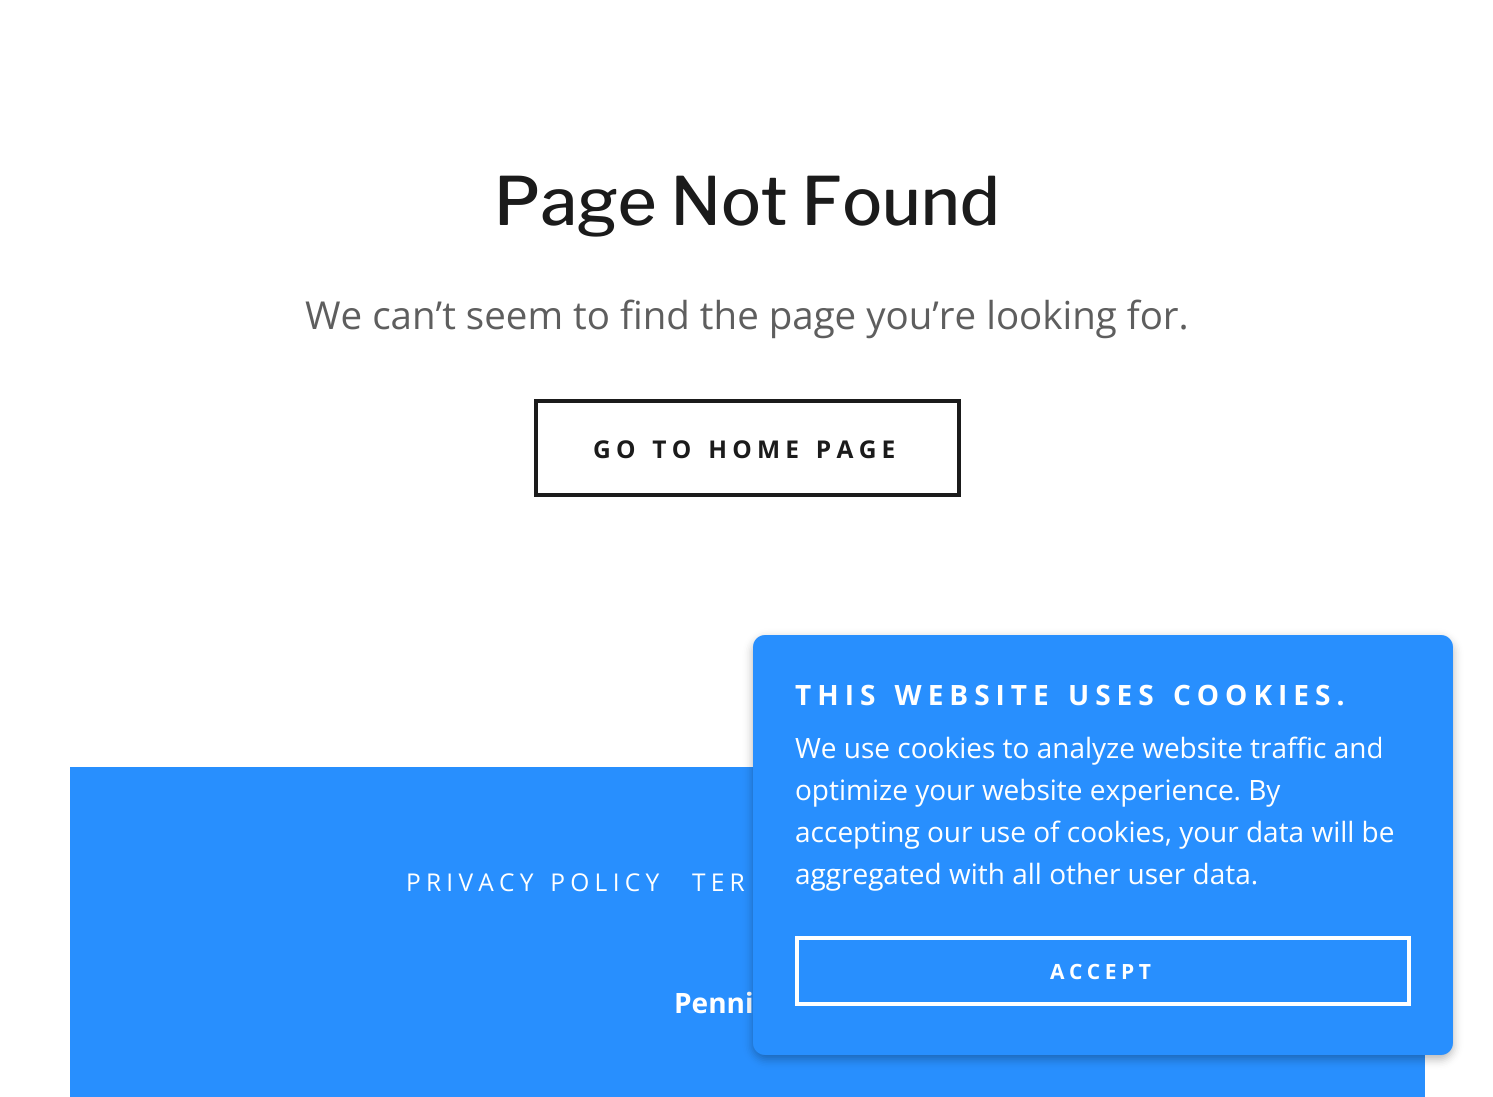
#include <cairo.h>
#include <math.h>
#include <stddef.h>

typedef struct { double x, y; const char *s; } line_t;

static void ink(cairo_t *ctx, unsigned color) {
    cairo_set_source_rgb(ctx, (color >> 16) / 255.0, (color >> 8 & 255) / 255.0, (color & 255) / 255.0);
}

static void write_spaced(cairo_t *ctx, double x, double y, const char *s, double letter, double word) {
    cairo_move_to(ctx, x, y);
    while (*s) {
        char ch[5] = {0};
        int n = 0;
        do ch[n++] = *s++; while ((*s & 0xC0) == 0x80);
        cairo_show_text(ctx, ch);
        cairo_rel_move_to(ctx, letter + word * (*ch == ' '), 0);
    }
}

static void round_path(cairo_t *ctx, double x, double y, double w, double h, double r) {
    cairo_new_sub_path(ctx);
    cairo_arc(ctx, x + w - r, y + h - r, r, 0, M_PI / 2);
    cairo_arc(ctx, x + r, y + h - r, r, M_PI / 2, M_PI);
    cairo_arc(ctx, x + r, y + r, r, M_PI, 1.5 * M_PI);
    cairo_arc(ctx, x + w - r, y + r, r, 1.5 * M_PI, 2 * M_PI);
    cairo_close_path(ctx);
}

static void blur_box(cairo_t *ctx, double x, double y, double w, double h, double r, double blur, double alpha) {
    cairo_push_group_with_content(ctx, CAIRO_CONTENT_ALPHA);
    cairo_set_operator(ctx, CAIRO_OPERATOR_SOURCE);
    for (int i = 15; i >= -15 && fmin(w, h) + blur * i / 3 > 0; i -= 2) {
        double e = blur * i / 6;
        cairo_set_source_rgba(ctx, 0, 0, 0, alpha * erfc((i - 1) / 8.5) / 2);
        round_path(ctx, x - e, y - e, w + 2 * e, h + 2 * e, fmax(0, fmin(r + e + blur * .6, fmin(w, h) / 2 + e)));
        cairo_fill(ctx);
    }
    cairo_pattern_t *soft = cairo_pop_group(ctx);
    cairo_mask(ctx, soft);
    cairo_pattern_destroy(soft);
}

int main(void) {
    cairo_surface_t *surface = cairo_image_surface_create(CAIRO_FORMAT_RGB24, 1493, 1097);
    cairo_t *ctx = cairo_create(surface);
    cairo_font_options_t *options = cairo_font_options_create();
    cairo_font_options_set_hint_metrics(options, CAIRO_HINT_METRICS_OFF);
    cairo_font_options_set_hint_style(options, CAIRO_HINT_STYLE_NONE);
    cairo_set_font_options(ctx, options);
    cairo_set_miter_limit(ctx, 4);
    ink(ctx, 0xFFFFFF);
    cairo_paint(ctx);
    ink(ctx, 0x288FFE);
    cairo_rectangle(ctx, 70, 767, 1355, 330);
    cairo_fill(ctx);
    cairo_select_font_face(ctx, "Libre Franklin Thin", CAIRO_FONT_SLANT_NORMAL, CAIRO_FONT_WEIGHT_NORMAL);
    cairo_set_font_size(ctx, 66.5);
    ink(ctx, 0x1B1B1B);
    cairo_move_to(ctx, 494, 225);
    cairo_show_text(ctx, "Page Not Found");
    cairo_select_font_face(ctx, "Open Sans", CAIRO_FONT_SLANT_NORMAL, CAIRO_FONT_WEIGHT_NORMAL);
    cairo_set_font_size(ctx, 38.5);
    ink(ctx, 0x5E5E5E);
    cairo_move_to(ctx, 305, 329);
    cairo_show_text(ctx, "We can’t seem to find the page you’re looking for.");
    cairo_rectangle(ctx, 536, 401, 423, 94);
    ink(ctx, 0x1B1B1B);
    cairo_set_line_width(ctx, 4);
    cairo_stroke(ctx);
    cairo_select_font_face(ctx, "Open Sans", CAIRO_FONT_SLANT_NORMAL, CAIRO_FONT_WEIGHT_BOLD);
    cairo_set_font_size(ctx, 24.5);
    write_spaced(ctx, 593, 458, "GO TO HOME PAGE", 5.25, 0);
    cairo_select_font_face(ctx, "Open Sans", CAIRO_FONT_SLANT_NORMAL, CAIRO_FONT_WEIGHT_NORMAL);
    ink(ctx, 0xFFFFFF);
    write_spaced(ctx, 406, 891, "PRIVACY POLICY", 5.25, 0);
    write_spaced(ctx, 692, 891, "TER", 5.25, 0);
    cairo_select_font_face(ctx, "Open Sans", CAIRO_FONT_SLANT_NORMAL, CAIRO_FONT_WEIGHT_BOLD);
    cairo_set_font_size(ctx, 28);
    cairo_move_to(ctx, 674, 1013);
    cairo_show_text(ctx, "Penni");
    ink(ctx, 0x000000);
    blur_box(ctx, 753, 639, 700, 420, 12, 5, 0.3);
    ink(ctx, 0x288FFE);
    round_path(ctx, 753, 635, 700, 420, 12);
    cairo_fill(ctx);
    ink(ctx, 0xFFFFFF);
    write_spaced(ctx, 795, 705, "THIS WEBSITE USES COOKIES.", 6, 0);
    cairo_select_font_face(ctx, "Open Sans", CAIRO_FONT_SLANT_NORMAL, CAIRO_FONT_WEIGHT_NORMAL);
    {
        static const line_t items[] = {
            {795, 758, "We use cookies to analyze website traffic and"},
            {795, 800, "optimize your website experience. By"},
            {795, 842, "accepting our use of cookies, your data will be"},
            {795, 884, "aggregated with all other user data."},
        };
        for (size_t i = 0; i < sizeof items / sizeof *items; i++) {
            cairo_move_to(ctx, items[i].x, items[i].y);
            cairo_show_text(ctx, items[i].s);
        }
    }
    cairo_rectangle(ctx, 797, 938, 612, 66);
    cairo_stroke(ctx);
    cairo_select_font_face(ctx, "Open Sans", CAIRO_FONT_SLANT_NORMAL, CAIRO_FONT_WEIGHT_BOLD);
    cairo_set_font_size(ctx, 21);
    write_spaced(ctx, 1050, 979, "ACCEPT", 4.5, 0);
    cairo_surface_write_to_png(surface, "image.png");
    cairo_font_options_destroy(options);
    cairo_destroy(ctx);
    cairo_surface_destroy(surface);
    return 0;
}
